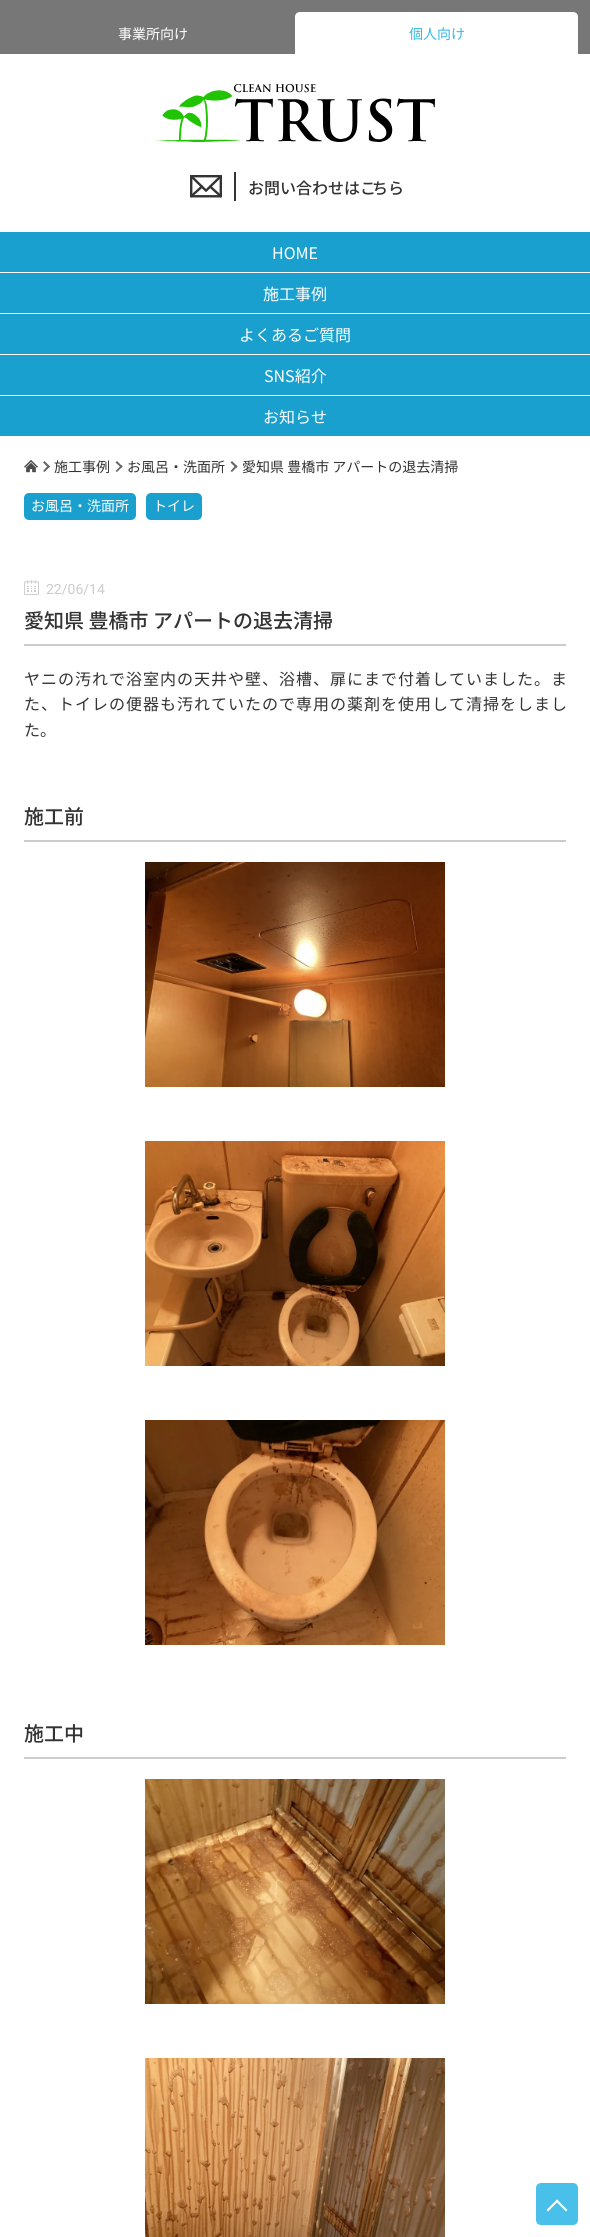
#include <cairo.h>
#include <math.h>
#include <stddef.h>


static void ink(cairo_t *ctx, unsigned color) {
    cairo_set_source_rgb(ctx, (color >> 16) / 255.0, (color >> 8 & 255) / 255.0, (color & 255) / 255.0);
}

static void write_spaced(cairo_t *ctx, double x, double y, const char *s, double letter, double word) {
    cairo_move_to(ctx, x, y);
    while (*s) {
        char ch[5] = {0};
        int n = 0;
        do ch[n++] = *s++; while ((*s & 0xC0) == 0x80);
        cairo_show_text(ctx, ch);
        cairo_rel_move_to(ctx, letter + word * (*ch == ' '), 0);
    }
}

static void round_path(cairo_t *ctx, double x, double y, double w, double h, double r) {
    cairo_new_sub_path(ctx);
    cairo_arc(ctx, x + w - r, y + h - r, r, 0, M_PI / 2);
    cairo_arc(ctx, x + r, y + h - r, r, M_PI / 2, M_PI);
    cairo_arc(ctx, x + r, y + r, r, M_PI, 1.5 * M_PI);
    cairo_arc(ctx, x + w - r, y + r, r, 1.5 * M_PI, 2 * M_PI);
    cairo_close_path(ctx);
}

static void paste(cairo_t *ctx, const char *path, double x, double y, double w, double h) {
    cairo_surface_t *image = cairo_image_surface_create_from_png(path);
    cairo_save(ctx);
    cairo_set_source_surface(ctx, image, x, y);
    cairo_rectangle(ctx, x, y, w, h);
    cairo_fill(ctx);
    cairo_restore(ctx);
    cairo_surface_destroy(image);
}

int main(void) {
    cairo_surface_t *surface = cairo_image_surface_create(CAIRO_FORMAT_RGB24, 590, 2237);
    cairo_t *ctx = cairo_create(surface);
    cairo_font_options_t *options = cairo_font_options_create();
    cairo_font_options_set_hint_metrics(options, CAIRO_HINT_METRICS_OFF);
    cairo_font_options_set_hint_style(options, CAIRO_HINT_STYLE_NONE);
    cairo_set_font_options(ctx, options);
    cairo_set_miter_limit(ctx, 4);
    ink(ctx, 0xFFFFFF);
    cairo_paint(ctx);
    ink(ctx, 0x777777);
    cairo_rectangle(ctx, 0, 0, 590, 54);
    cairo_fill(ctx);
    cairo_select_font_face(ctx, "Noto Sans JP", CAIRO_FONT_SLANT_NORMAL, CAIRO_FONT_WEIGHT_NORMAL);
    cairo_set_font_size(ctx, 14);
    ink(ctx, 0xFFFFFF);
    cairo_move_to(ctx, 118, 39);
    cairo_show_text(ctx, "事業所向け");
    cairo_new_path(ctx);
    cairo_move_to(ctx, 300, 12);
    cairo_line_to(ctx, 573, 12);
    cairo_curve_to(ctx, 576, 12, 578, 14, 578, 17);
    cairo_line_to(ctx, 578, 54);
    cairo_line_to(ctx, 295, 54);
    cairo_line_to(ctx, 295, 17);
    cairo_curve_to(ctx, 295, 14, 297, 12, 300, 12);
    cairo_close_path(ctx);
    cairo_fill(ctx);
    ink(ctx, 0x35B9E6);
    cairo_move_to(ctx, 409, 39);
    cairo_show_text(ctx, "個人向け");
    paste(ctx, "media/1.png", 156, 84, 279, 58);
    paste(ctx, "media/2.png", 190, 175, 32, 23);
    ink(ctx, 0x333333);
    cairo_rectangle(ctx, 234, 172, 2, 29);
    cairo_fill(ctx);
    cairo_select_font_face(ctx, "Noto Sans JP Medium", CAIRO_FONT_SLANT_NORMAL, CAIRO_FONT_WEIGHT_NORMAL);
    cairo_set_font_size(ctx, 16);
    cairo_move_to(ctx, 248, 194);
    cairo_show_text(ctx, "お問い合わせはこ");
    cairo_move_to(ctx, 372, 194);
    cairo_show_text(ctx, "ちら");
    ink(ctx, 0x1AA0CE);
    cairo_rectangle(ctx, 0, 232, 590, 204);
    cairo_fill(ctx);
    cairo_select_font_face(ctx, "Noto Sans JP", CAIRO_FONT_SLANT_NORMAL, CAIRO_FONT_WEIGHT_NORMAL);
    ink(ctx, 0xFFFFFF);
    cairo_move_to(ctx, 272, 259);
    cairo_show_text(ctx, "HOME");
    cairo_rectangle(ctx, 0, 272, 590, 1);
    cairo_fill(ctx);
    cairo_move_to(ctx, 263, 300);
    cairo_show_text(ctx, "施工事例");
    cairo_rectangle(ctx, 0, 313, 590, 1);
    cairo_fill(ctx);
    cairo_move_to(ctx, 239, 341);
    cairo_show_text(ctx, "よくあるご質問");
    cairo_rectangle(ctx, 0, 354, 590, 1);
    cairo_fill(ctx);
    cairo_move_to(ctx, 264, 382);
    cairo_show_text(ctx, "SNS紹介");
    cairo_rectangle(ctx, 0, 395, 590, 1);
    cairo_fill(ctx);
    cairo_move_to(ctx, 263, 423);
    cairo_show_text(ctx, "お知らせ");
    paste(ctx, "media/3.png", 24, 459, 14, 14);
    ink(ctx, 0x666666);
    cairo_new_path(ctx);
    cairo_move_to(ctx, 43, 462.5);
    cairo_line_to(ctx, 44.5, 461);
    cairo_line_to(ctx, 50, 466.5);
    cairo_line_to(ctx, 48.5, 468);
    cairo_close_path(ctx);
    cairo_fill(ctx);
    cairo_new_path(ctx);
    cairo_move_to(ctx, 43, 471);
    cairo_line_to(ctx, 48.5, 465);
    cairo_line_to(ctx, 50, 466.5);
    cairo_line_to(ctx, 44.5, 472);
    cairo_close_path(ctx);
    cairo_fill(ctx);
    cairo_set_font_size(ctx, 14);
    ink(ctx, 0x333333);
    cairo_move_to(ctx, 54, 472);
    cairo_show_text(ctx, "施工事例");
    ink(ctx, 0x666666);
    cairo_new_path(ctx);
    cairo_move_to(ctx, 115.5, 462.5);
    cairo_line_to(ctx, 117, 461);
    cairo_line_to(ctx, 122.5, 466.5);
    cairo_line_to(ctx, 121.5, 468);
    cairo_close_path(ctx);
    cairo_fill(ctx);
    cairo_new_path(ctx);
    cairo_move_to(ctx, 115.5, 471);
    cairo_line_to(ctx, 121.5, 465);
    cairo_line_to(ctx, 122.5, 466.5);
    cairo_line_to(ctx, 117, 472);
    cairo_close_path(ctx);
    cairo_fill(ctx);
    ink(ctx, 0x333333);
    cairo_move_to(ctx, 127, 472);
    cairo_show_text(ctx, "お風呂・洗面所");
    ink(ctx, 0x666666);
    cairo_new_path(ctx);
    cairo_move_to(ctx, 230.5, 462.5);
    cairo_line_to(ctx, 232, 461);
    cairo_line_to(ctx, 237.5, 466.5);
    cairo_line_to(ctx, 236, 468);
    cairo_close_path(ctx);
    cairo_fill(ctx);
    cairo_new_path(ctx);
    cairo_move_to(ctx, 230.5, 471);
    cairo_line_to(ctx, 236, 465);
    cairo_line_to(ctx, 237.5, 466.5);
    cairo_line_to(ctx, 232, 472);
    cairo_close_path(ctx);
    cairo_fill(ctx);
    ink(ctx, 0x333333);
    cairo_move_to(ctx, 242, 472);
    cairo_show_text(ctx, "愛知県 豊橋市 アパートの退去清掃");
    ink(ctx, 0x1AA0CE);
    round_path(ctx, 24, 493, 112, 27, 5);
    cairo_fill(ctx);
    ink(ctx, 0xFFFFFF);
    cairo_move_to(ctx, 31, 511);
    cairo_show_text(ctx, "お風呂・洗面所");
    ink(ctx, 0x1AA0CE);
    round_path(ctx, 146, 493, 56, 27, 5);
    cairo_fill(ctx);
    ink(ctx, 0xFFFFFF);
    cairo_move_to(ctx, 153, 511);
    cairo_show_text(ctx, "トイレ");
    paste(ctx, "media/4.png", 24, 580, 15, 15);
    cairo_select_font_face(ctx, "Roboto", CAIRO_FONT_SLANT_NORMAL, CAIRO_FONT_WEIGHT_NORMAL);
    ink(ctx, 0xCCCCCC);
    cairo_move_to(ctx, 46, 594);
    cairo_show_text(ctx, "22/06/14");
    cairo_rectangle(ctx, 24, 644, 542, 2);
    cairo_fill(ctx);
    cairo_select_font_face(ctx, "Noto Sans JP Medium", CAIRO_FONT_SLANT_NORMAL, CAIRO_FONT_WEIGHT_NORMAL);
    cairo_set_font_size(ctx, 20);
    ink(ctx, 0x333333);
    cairo_move_to(ctx, 24, 628);
    cairo_show_text(ctx, "愛知県 豊橋市 アパートの退去清掃");
    cairo_select_font_face(ctx, "Noto Sans JP", CAIRO_FONT_SLANT_NORMAL, CAIRO_FONT_WEIGHT_NORMAL);
    cairo_set_font_size(ctx, 16);
    write_spaced(ctx, 24, 685, "ヤニの汚れで浴室内の天井や壁、浴槽、扉にまで付着していました。ま", 1, 0);
    write_spaced(ctx, 24, 710, "た、トイレの便器も汚れていたので専用の薬剤を使用して清掃をしまし", 1, 0);
    cairo_move_to(ctx, 24, 736);
    cairo_show_text(ctx, "た。");
    ink(ctx, 0xCCCCCC);
    cairo_rectangle(ctx, 24, 840, 542, 2);
    cairo_fill(ctx);
    cairo_select_font_face(ctx, "Noto Sans JP Medium", CAIRO_FONT_SLANT_NORMAL, CAIRO_FONT_WEIGHT_NORMAL);
    cairo_set_font_size(ctx, 20);
    ink(ctx, 0x333333);
    cairo_move_to(ctx, 24, 824);
    cairo_show_text(ctx, "施工前");
    paste(ctx, "media/5.png", 145, 862, 300, 225);
    paste(ctx, "media/6.png", 145, 1141, 300, 225);
    paste(ctx, "media/7.png", 145, 1420, 300, 225);
    ink(ctx, 0xCCCCCC);
    cairo_rectangle(ctx, 24, 1757, 542, 2);
    cairo_fill(ctx);
    ink(ctx, 0x333333);
    cairo_move_to(ctx, 24, 1741);
    cairo_show_text(ctx, "施工中");
    paste(ctx, "media/8.png", 145, 1779, 300, 225);
    paste(ctx, "media/9.png", 145, 2058, 300, 179);
    ink(ctx, 0x49C0E9);
    round_path(ctx, 536, 2183, 42, 42, 5);
    cairo_fill(ctx);
    ink(ctx, 0xFFFFFF);
    cairo_new_path(ctx);
    cairo_move_to(ctx, 557, 2199.5);
    cairo_line_to(ctx, 567.5, 2210);
    cairo_line_to(ctx, 566, 2211.5);
    cairo_line_to(ctx, 555.5, 2201);
    cairo_close_path(ctx);
    cairo_fill(ctx);
    cairo_new_path(ctx);
    cairo_move_to(ctx, 557, 2199.5);
    cairo_line_to(ctx, 558.5, 2201);
    cairo_line_to(ctx, 548, 2211.5);
    cairo_line_to(ctx, 546.5, 2210);
    cairo_close_path(ctx);
    cairo_fill(ctx);
    cairo_surface_write_to_png(surface, "image.png");
    cairo_font_options_destroy(options);
    cairo_destroy(ctx);
    cairo_surface_destroy(surface);
    return 0;
}
